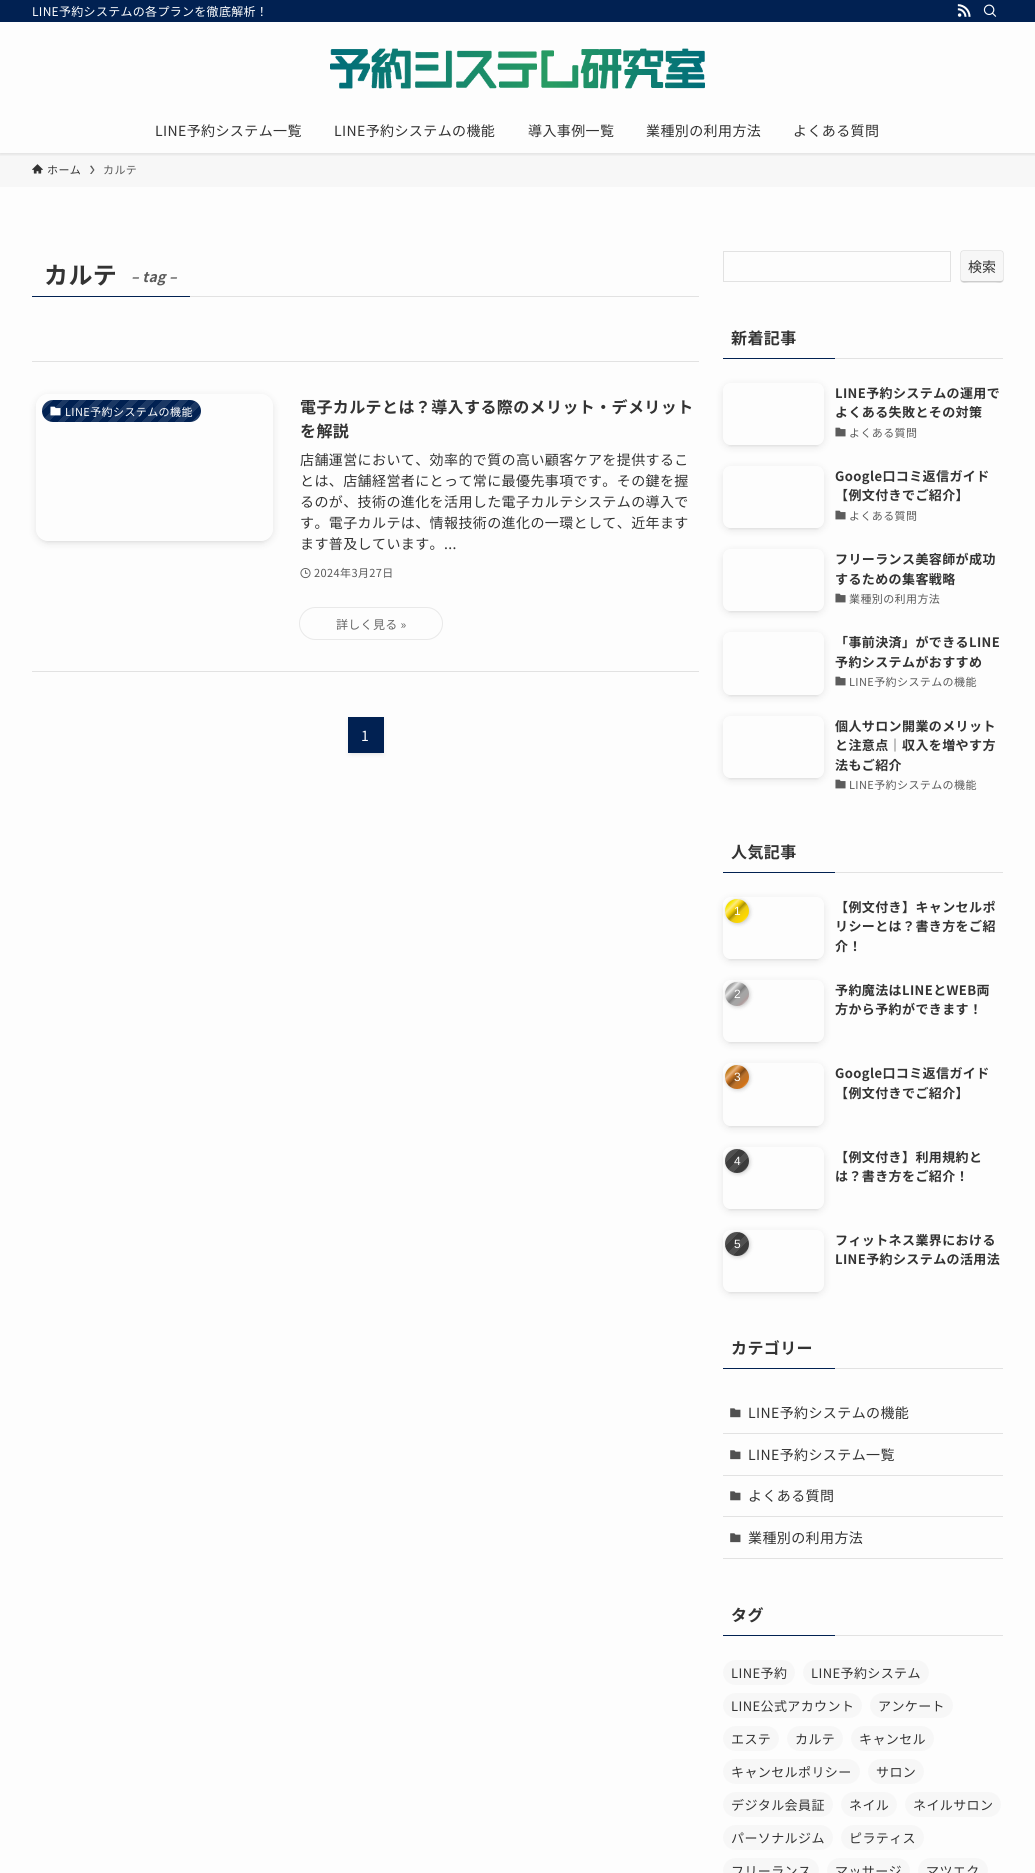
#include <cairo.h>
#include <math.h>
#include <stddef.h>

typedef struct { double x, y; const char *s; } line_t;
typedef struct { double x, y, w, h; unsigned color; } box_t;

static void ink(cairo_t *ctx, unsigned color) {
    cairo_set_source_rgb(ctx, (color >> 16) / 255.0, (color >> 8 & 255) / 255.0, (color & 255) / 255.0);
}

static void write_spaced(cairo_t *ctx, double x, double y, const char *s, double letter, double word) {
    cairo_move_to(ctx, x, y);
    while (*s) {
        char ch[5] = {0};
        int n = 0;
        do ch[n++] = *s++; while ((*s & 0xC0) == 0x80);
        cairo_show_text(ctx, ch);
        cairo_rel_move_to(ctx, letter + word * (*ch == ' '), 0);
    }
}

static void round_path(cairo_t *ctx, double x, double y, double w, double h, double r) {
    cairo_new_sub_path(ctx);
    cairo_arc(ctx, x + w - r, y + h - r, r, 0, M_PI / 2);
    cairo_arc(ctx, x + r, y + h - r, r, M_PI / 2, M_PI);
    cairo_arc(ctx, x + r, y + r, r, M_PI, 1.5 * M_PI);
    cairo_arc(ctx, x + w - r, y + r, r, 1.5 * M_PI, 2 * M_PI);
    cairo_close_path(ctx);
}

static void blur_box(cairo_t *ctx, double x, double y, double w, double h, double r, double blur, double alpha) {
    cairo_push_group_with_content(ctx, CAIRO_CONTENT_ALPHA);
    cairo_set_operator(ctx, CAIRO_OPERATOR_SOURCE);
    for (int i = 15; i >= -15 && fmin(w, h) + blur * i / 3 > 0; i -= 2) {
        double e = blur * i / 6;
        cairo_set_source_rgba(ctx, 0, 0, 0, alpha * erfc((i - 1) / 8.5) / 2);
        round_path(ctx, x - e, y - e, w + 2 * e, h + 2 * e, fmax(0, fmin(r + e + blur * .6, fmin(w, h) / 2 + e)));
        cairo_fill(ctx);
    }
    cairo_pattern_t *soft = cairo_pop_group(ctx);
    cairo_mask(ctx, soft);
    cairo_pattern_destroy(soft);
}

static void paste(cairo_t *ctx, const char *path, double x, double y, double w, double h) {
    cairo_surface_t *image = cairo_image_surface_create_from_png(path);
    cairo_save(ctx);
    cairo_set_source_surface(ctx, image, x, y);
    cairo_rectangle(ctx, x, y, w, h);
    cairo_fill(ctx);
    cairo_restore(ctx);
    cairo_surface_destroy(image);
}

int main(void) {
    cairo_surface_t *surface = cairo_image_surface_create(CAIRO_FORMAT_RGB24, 1035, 1873);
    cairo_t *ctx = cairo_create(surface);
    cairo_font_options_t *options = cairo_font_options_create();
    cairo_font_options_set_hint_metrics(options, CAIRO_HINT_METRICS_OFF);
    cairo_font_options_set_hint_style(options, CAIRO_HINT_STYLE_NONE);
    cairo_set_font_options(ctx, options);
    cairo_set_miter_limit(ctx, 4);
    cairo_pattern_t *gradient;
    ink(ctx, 0xFDFDFD);
    cairo_paint(ctx);
    ink(ctx, 0xF7F7F7);
    cairo_rectangle(ctx, 0, 153, 1035, 34);
    cairo_fill(ctx);
    cairo_save(ctx);
    cairo_rectangle(ctx, 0, 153, 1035, 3);
    cairo_clip(ctx);
    ink(ctx, 0x000000);
    blur_box(ctx, 0, 1, 1035, 153, 0, 2, 0.12);
    cairo_restore(ctx);
    ink(ctx, 0x012152);
    cairo_rectangle(ctx, 0, 0, 1035, 22);
    cairo_fill(ctx);
    cairo_select_font_face(ctx, "Noto Sans JP", CAIRO_FONT_SLANT_NORMAL, CAIRO_FONT_WEIGHT_NORMAL);
    cairo_set_font_size(ctx, 12);
    ink(ctx, 0xFFFFFF);
    write_spaced(ctx, 32, 16, "LINE予約システムの各プランを徹底解析！", 0.3, 0);
    paste(ctx, "media/1.png", 957, 4, 14, 13);
    paste(ctx, "media/2.png", 983, 4, 14, 13);
    paste(ctx, "media/3.png", 330, 48, 375, 41);
    cairo_set_font_size(ctx, 14);
    ink(ctx, 0x333333);
    {
        static const line_t items[] = {
            {155, 136, "LINE予約システム一覧"},
            {334, 136, "LINE予約システムの機能"},
            {528, 136, "導入事例一覧"},
            {646, 136, "業種別の利用方法"},
            {793, 136, "よくある質問"},
        };
        for (size_t i = 0; i < sizeof items / sizeof *items; i++) {
            write_spaced(ctx, items[i].x, items[i].y, items[i].s, 0.4, 0);
        }
    }
    paste(ctx, "media/4.png", 32, 164, 11, 10);
    cairo_set_font_size(ctx, 11);
    write_spaced(ctx, 47, 174, "ホーム", 0.4, 0);
    ink(ctx, 0x5A5A5A);
    cairo_new_path(ctx);
    cairo_move_to(ctx, 91.5, 165.5);
    cairo_line_to(ctx, 90, 166);
    cairo_line_to(ctx, 93, 170);
    cairo_line_to(ctx, 90, 174);
    cairo_line_to(ctx, 91.5, 174);
    cairo_line_to(ctx, 94.5, 170);
    cairo_close_path(ctx);
    cairo_fill(ctx);
    write_spaced(ctx, 103, 174, "カルテ", 0.4, 0);
    ink(ctx, 0xE2E2E2);
    cairo_rectangle(ctx, 190, 296, 509, 1);
    cairo_fill(ctx);
    ink(ctx, 0x012152);
    cairo_rectangle(ctx, 32, 296, 158, 1);
    cairo_fill(ctx);
    cairo_select_font_face(ctx, "Noto Sans JP", CAIRO_FONT_SLANT_NORMAL, CAIRO_FONT_WEIGHT_BOLD);
    cairo_set_font_size(ctx, 24);
    ink(ctx, 0x333333);
    write_spaced(ctx, 44, 284, "カルテ", 0.4, 0);
    cairo_select_font_face(ctx, "Noto Sans JP", CAIRO_FONT_SLANT_ITALIC, CAIRO_FONT_WEIGHT_BOLD);
    cairo_set_font_size(ctx, 14);
    ink(ctx, 0x5A5A5A);
    write_spaced(ctx, 131, 282, "– tag –", 0.25, 0);
    ink(ctx, 0xE2E2E2);
    cairo_rectangle(ctx, 32, 361, 667, 1);
    cairo_fill(ctx);
    cairo_rectangle(ctx, 32, 671, 667, 1);
    cairo_fill(ctx);
    cairo_save(ctx);
    cairo_set_fill_rule(ctx, CAIRO_FILL_RULE_EVEN_ODD);
    cairo_new_path(ctx);
    cairo_move_to(ctx, 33, 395);
    cairo_line_to(ctx, 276, 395);
    cairo_line_to(ctx, 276, 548);
    cairo_line_to(ctx, 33, 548);
    cairo_close_path(ctx);
    cairo_move_to(ctx, 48, 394);
    cairo_line_to(ctx, 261, 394);
    cairo_curve_to(ctx, 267.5, 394, 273, 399.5, 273, 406);
    cairo_line_to(ctx, 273, 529);
    cairo_curve_to(ctx, 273, 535.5, 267.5, 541, 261, 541);
    cairo_line_to(ctx, 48, 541);
    cairo_curve_to(ctx, 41.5, 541, 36, 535.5, 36, 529);
    cairo_line_to(ctx, 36, 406);
    cairo_curve_to(ctx, 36, 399.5, 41.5, 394, 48, 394);
    cairo_close_path(ctx);
    cairo_clip(ctx);
    ink(ctx, 0x000000);
    blur_box(ctx, 40, 402, 229, 139, 8, 2, 0.1);
    cairo_restore(ctx);
    cairo_save(ctx);
    cairo_set_fill_rule(ctx, CAIRO_FILL_RULE_EVEN_ODD);
    cairo_new_path(ctx);
    cairo_move_to(ctx, 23, 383);
    cairo_line_to(ctx, 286, 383);
    cairo_line_to(ctx, 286, 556);
    cairo_line_to(ctx, 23, 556);
    cairo_close_path(ctx);
    cairo_move_to(ctx, 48, 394);
    cairo_line_to(ctx, 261, 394);
    cairo_curve_to(ctx, 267.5, 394, 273, 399.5, 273, 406);
    cairo_line_to(ctx, 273, 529);
    cairo_curve_to(ctx, 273, 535.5, 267.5, 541, 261, 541);
    cairo_line_to(ctx, 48, 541);
    cairo_curve_to(ctx, 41.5, 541, 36, 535.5, 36, 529);
    cairo_line_to(ctx, 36, 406);
    cairo_curve_to(ctx, 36, 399.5, 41.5, 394, 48, 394);
    cairo_close_path(ctx);
    cairo_clip(ctx);
    ink(ctx, 0x000000);
    blur_box(ctx, 36, 396, 237, 147, 12, 4, 0.1);
    cairo_restore(ctx);
    ink(ctx, 0x012152);
    round_path(ctx, 42, 400, 159, 22, 11);
    cairo_fill(ctx);
    gradient = cairo_pattern_create_linear(167, 456, 73, 363);
    cairo_pattern_add_color_stop_rgba(gradient, 0, 1, 1, 1, 0.1);
    cairo_pattern_add_color_stop_rgba(gradient, 0.05, 1, 1, 1, 0.1);
    cairo_pattern_add_color_stop_rgba(gradient, 0.05, 1, 1, 1, 0);
    cairo_pattern_add_color_stop_rgba(gradient, 0.09, 1, 1, 1, 0);
    cairo_pattern_add_color_stop_rgba(gradient, 0.09, 1, 1, 1, 0.1);
    cairo_pattern_add_color_stop_rgba(gradient, 0.14, 1, 1, 1, 0.1);
    cairo_pattern_add_color_stop_rgba(gradient, 0.14, 1, 1, 1, 0);
    cairo_pattern_add_color_stop_rgba(gradient, 0.18, 1, 1, 1, 0);
    cairo_pattern_add_color_stop_rgba(gradient, 0.18, 1, 1, 1, 0.1);
    cairo_pattern_add_color_stop_rgba(gradient, 0.23, 1, 1, 1, 0.1);
    cairo_pattern_add_color_stop_rgba(gradient, 0.23, 1, 1, 1, 0);
    cairo_pattern_add_color_stop_rgba(gradient, 0.27, 1, 1, 1, 0);
    cairo_pattern_add_color_stop_rgba(gradient, 0.27, 1, 1, 1, 0.1);
    cairo_pattern_add_color_stop_rgba(gradient, 0.32, 1, 1, 1, 0.1);
    cairo_pattern_add_color_stop_rgba(gradient, 0.32, 1, 1, 1, 0);
    cairo_pattern_add_color_stop_rgba(gradient, 0.36, 1, 1, 1, 0);
    cairo_pattern_add_color_stop_rgba(gradient, 0.36, 1, 1, 1, 0.1);
    cairo_pattern_add_color_stop_rgba(gradient, 0.41, 1, 1, 1, 0.1);
    cairo_pattern_add_color_stop_rgba(gradient, 0.41, 1, 1, 1, 0);
    cairo_pattern_add_color_stop_rgba(gradient, 0.45, 1, 1, 1, 0);
    cairo_pattern_add_color_stop_rgba(gradient, 0.45, 1, 1, 1, 0.1);
    cairo_pattern_add_color_stop_rgba(gradient, 0.5, 1, 1, 1, 0.1);
    cairo_pattern_add_color_stop_rgba(gradient, 0.5, 1, 1, 1, 0);
    cairo_pattern_add_color_stop_rgba(gradient, 0.55, 1, 1, 1, 0);
    cairo_pattern_add_color_stop_rgba(gradient, 0.55, 1, 1, 1, 0.1);
    cairo_pattern_add_color_stop_rgba(gradient, 0.59, 1, 1, 1, 0.1);
    cairo_pattern_add_color_stop_rgba(gradient, 0.59, 1, 1, 1, 0);
    cairo_pattern_add_color_stop_rgba(gradient, 0.64, 1, 1, 1, 0);
    cairo_pattern_add_color_stop_rgba(gradient, 0.64, 1, 1, 1, 0.1);
    cairo_pattern_add_color_stop_rgba(gradient, 0.68, 1, 1, 1, 0.1);
    cairo_pattern_add_color_stop_rgba(gradient, 0.68, 1, 1, 1, 0);
    cairo_pattern_add_color_stop_rgba(gradient, 0.73, 1, 1, 1, 0);
    cairo_pattern_add_color_stop_rgba(gradient, 0.73, 1, 1, 1, 0.1);
    cairo_pattern_add_color_stop_rgba(gradient, 0.77, 1, 1, 1, 0.1);
    cairo_pattern_add_color_stop_rgba(gradient, 0.77, 1, 1, 1, 0);
    cairo_pattern_add_color_stop_rgba(gradient, 0.82, 1, 1, 1, 0);
    cairo_pattern_add_color_stop_rgba(gradient, 0.82, 1, 1, 1, 0.1);
    cairo_pattern_add_color_stop_rgba(gradient, 0.86, 1, 1, 1, 0.1);
    cairo_pattern_add_color_stop_rgba(gradient, 0.86, 1, 1, 1, 0);
    cairo_pattern_add_color_stop_rgba(gradient, 0.91, 1, 1, 1, 0);
    cairo_pattern_add_color_stop_rgba(gradient, 0.91, 1, 1, 1, 0.1);
    cairo_pattern_add_color_stop_rgba(gradient, 0.95, 1, 1, 1, 0.1);
    cairo_pattern_add_color_stop_rgba(gradient, 0.95, 1, 1, 1, 0);
    cairo_pattern_add_color_stop_rgba(gradient, 1, 0, 0, 0, 0);
    cairo_set_source(ctx, gradient);
    cairo_pattern_destroy(gradient);
    round_path(ctx, 42, 400, 159, 22, 11);
    cairo_fill(ctx);
    paste(ctx, "media/5.png", 50, 406, 11, 10);
    cairo_select_font_face(ctx, "Noto Sans JP", CAIRO_FONT_SLANT_NORMAL, CAIRO_FONT_WEIGHT_NORMAL);
    cairo_set_font_size(ctx, 11);
    ink(ctx, 0xFFFFFF);
    write_spaced(ctx, 65, 416, "LINE予約システムの機能", 0.4, 0);
    cairo_select_font_face(ctx, "Noto Sans JP", CAIRO_FONT_SLANT_NORMAL, CAIRO_FONT_WEIGHT_BOLD);
    cairo_set_font_size(ctx, 16);
    ink(ctx, 0x333333);
    write_spaced(ctx, 300, 413, "電子カルテとは？導入する際のメリット・デメリット", 0.4, 0);
    write_spaced(ctx, 300, 437, "を解説", 0.4, 0);
    cairo_select_font_face(ctx, "Noto Sans JP", CAIRO_FONT_SLANT_NORMAL, CAIRO_FONT_WEIGHT_NORMAL);
    cairo_set_font_size(ctx, 14);
    {
        static const line_t items[] = {
            {300, 465, "店舗運営において、効率的で質の高い顧客ケアを提供するこ"},
            {300, 486, "とは、店舗経営者にとって常に最優先事項です。その鍵を握"},
            {300, 507, "るのが、技術の進化を活用した電子カルテシステムの導入で"},
            {300, 528, "す。電子カルテは、情報技術の進化の一環として、近年ます"},
            {300, 549, "ます普及しています。..."},
        };
        for (size_t i = 0; i < sizeof items / sizeof *items; i++) {
            write_spaced(ctx, items[i].x, items[i].y, items[i].s, 0.4, 0);
        }
    }
    paste(ctx, "media/6.png", 300, 568, 11, 11);
    cairo_set_font_size(ctx, 11);
    ink(ctx, 0x5A5A5A);
    write_spaced(ctx, 314, 577, "2024年3月27日", 0.4, 0);
    round_path(ctx, 299.5, 607.5, 143, 32, 16);
    ink(ctx, 0xE9E9E9);
    cairo_set_line_width(ctx, 1);
    cairo_stroke(ctx);
    cairo_set_font_size(ctx, 12);
    ink(ctx, 0x666666);
    write_spaced(ctx, 336, 629, "詳しく見る »", 0.3, 0);
    ink(ctx, 0x000000);
    blur_box(ctx, 352, 725, 28, 28, 0, 2, 0.1);
    blur_box(ctx, 348, 719, 36, 36, 0, 2, 0.05);
    ink(ctx, 0x012152);
    cairo_rectangle(ctx, 348, 717, 36, 36);
    cairo_fill(ctx);
    cairo_set_font_size(ctx, 14);
    ink(ctx, 0xFFFFFF);
    write_spaced(ctx, 361, 741, "1", 0.4, 0);
    cairo_rectangle(ctx, 723.5, 251.5, 227, 30);
    ink(ctx, 0xE2E2E2);
    cairo_stroke(ctx);
    ink(ctx, 0xAAAAAA);
    blur_box(ctx, 961, 251, 42, 31, 2, 0.5, 1);
    ink(ctx, 0xF7F7F7);
    round_path(ctx, 961, 251, 42, 31, 2);
    cairo_fill(ctx);
    ink(ctx, 0xCCCCCC);
    cairo_new_path(ctx);
    cairo_move_to(ctx, 961, 279);
    cairo_curve_to(ctx, 961, 284, 966, 282, 969, 282);
    cairo_line_to(ctx, 995, 282);
    cairo_curve_to(ctx, 998, 282, 1003, 284, 1003, 279);
    cairo_curve_to(ctx, 1003, 280, 1002, 281, 1001, 281);
    cairo_line_to(ctx, 963, 281);
    cairo_curve_to(ctx, 962, 281, 961, 280, 961, 279);
    cairo_close_path(ctx);
    cairo_fill(ctx);
    ink(ctx, 0x333333);
    cairo_move_to(ctx, 968, 272);
    cairo_show_text(ctx, "検索");
    cairo_select_font_face(ctx, "Noto Sans JP", CAIRO_FONT_SLANT_NORMAL, CAIRO_FONT_WEIGHT_BOLD);
    cairo_set_font_size(ctx, 16);
    write_spaced(ctx, 731, 344, "新着記事", 0.4, 0);
    ink(ctx, 0x012152);
    cairo_rectangle(ctx, 723, 358, 112, 1);
    cairo_fill(ctx);
    ink(ctx, 0xE2E2E2);
    cairo_rectangle(ctx, 835, 358, 168, 1);
    cairo_fill(ctx);
    cairo_save(ctx);
    cairo_rectangle(ctx, 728, 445, 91, 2);
    cairo_clip(ctx);
    ink(ctx, 0x000000);
    blur_box(ctx, 727, 391, 93, 54, 4, 2, 0.1);
    cairo_restore(ctx);
    cairo_save(ctx);
    cairo_set_fill_rule(ctx, CAIRO_FILL_RULE_EVEN_ODD);
    cairo_new_path(ctx);
    cairo_move_to(ctx, 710, 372);
    cairo_line_to(ctx, 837, 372);
    cairo_line_to(ctx, 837, 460);
    cairo_line_to(ctx, 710, 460);
    cairo_close_path(ctx);
    cairo_move_to(ctx, 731, 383);
    cairo_line_to(ctx, 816, 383);
    cairo_curve_to(ctx, 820.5, 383, 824, 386.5, 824, 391);
    cairo_line_to(ctx, 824, 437);
    cairo_curve_to(ctx, 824, 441.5, 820.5, 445, 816, 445);
    cairo_line_to(ctx, 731, 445);
    cairo_curve_to(ctx, 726.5, 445, 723, 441.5, 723, 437);
    cairo_line_to(ctx, 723, 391);
    cairo_curve_to(ctx, 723, 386.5, 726.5, 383, 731, 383);
    cairo_close_path(ctx);
    cairo_clip(ctx);
    ink(ctx, 0x000000);
    blur_box(ctx, 723, 385, 101, 62, 8, 4, 0.1);
    cairo_restore(ctx);
    cairo_set_font_size(ctx, 13);
    ink(ctx, 0x333333);
    write_spaced(ctx, 835, 398, "LINE予約システムの運用で", 0.4, 0);
    write_spaced(ctx, 835, 417, "よくある失敗とその対策", 0.4, 0);
    paste(ctx, "media/7.png", 835, 427, 11, 10);
    cairo_select_font_face(ctx, "Noto Sans JP", CAIRO_FONT_SLANT_NORMAL, CAIRO_FONT_WEIGHT_NORMAL);
    cairo_set_font_size(ctx, 11);
    ink(ctx, 0x5A5A5A);
    write_spaced(ctx, 849, 437, "よくある質問", 0.4, 0);
    cairo_save(ctx);
    cairo_rectangle(ctx, 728, 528, 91, 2);
    cairo_clip(ctx);
    ink(ctx, 0x000000);
    blur_box(ctx, 727, 474, 93, 54, 4, 2, 0.1);
    cairo_restore(ctx);
    cairo_save(ctx);
    cairo_set_fill_rule(ctx, CAIRO_FILL_RULE_EVEN_ODD);
    cairo_new_path(ctx);
    cairo_move_to(ctx, 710, 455);
    cairo_line_to(ctx, 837, 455);
    cairo_line_to(ctx, 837, 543);
    cairo_line_to(ctx, 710, 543);
    cairo_close_path(ctx);
    cairo_move_to(ctx, 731, 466);
    cairo_line_to(ctx, 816, 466);
    cairo_curve_to(ctx, 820.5, 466, 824, 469.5, 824, 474);
    cairo_line_to(ctx, 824, 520);
    cairo_curve_to(ctx, 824, 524.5, 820.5, 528, 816, 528);
    cairo_line_to(ctx, 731, 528);
    cairo_curve_to(ctx, 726.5, 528, 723, 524.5, 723, 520);
    cairo_line_to(ctx, 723, 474);
    cairo_curve_to(ctx, 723, 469.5, 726.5, 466, 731, 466);
    cairo_close_path(ctx);
    cairo_clip(ctx);
    ink(ctx, 0x000000);
    blur_box(ctx, 723, 468, 101, 62, 8, 4, 0.1);
    cairo_restore(ctx);
    cairo_select_font_face(ctx, "Noto Sans JP", CAIRO_FONT_SLANT_NORMAL, CAIRO_FONT_WEIGHT_BOLD);
    cairo_set_font_size(ctx, 13);
    ink(ctx, 0x333333);
    write_spaced(ctx, 835, 481, "Google口コミ返信ガイド", 0.4, 0);
    write_spaced(ctx, 835, 500, "【例文付きでご紹介】", 0.4, 0);
    paste(ctx, "media/7.png", 835, 510, 11, 10);
    cairo_select_font_face(ctx, "Noto Sans JP", CAIRO_FONT_SLANT_NORMAL, CAIRO_FONT_WEIGHT_NORMAL);
    cairo_set_font_size(ctx, 11);
    ink(ctx, 0x5A5A5A);
    write_spaced(ctx, 849, 520, "よくある質問", 0.4, 0);
    cairo_save(ctx);
    cairo_rectangle(ctx, 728, 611, 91, 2);
    cairo_clip(ctx);
    ink(ctx, 0x000000);
    blur_box(ctx, 727, 557, 93, 54, 4, 2, 0.1);
    cairo_restore(ctx);
    cairo_save(ctx);
    cairo_set_fill_rule(ctx, CAIRO_FILL_RULE_EVEN_ODD);
    cairo_new_path(ctx);
    cairo_move_to(ctx, 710, 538);
    cairo_line_to(ctx, 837, 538);
    cairo_line_to(ctx, 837, 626);
    cairo_line_to(ctx, 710, 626);
    cairo_close_path(ctx);
    cairo_move_to(ctx, 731, 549);
    cairo_line_to(ctx, 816, 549);
    cairo_curve_to(ctx, 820.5, 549, 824, 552.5, 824, 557);
    cairo_line_to(ctx, 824, 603);
    cairo_curve_to(ctx, 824, 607.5, 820.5, 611, 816, 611);
    cairo_line_to(ctx, 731, 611);
    cairo_curve_to(ctx, 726.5, 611, 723, 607.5, 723, 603);
    cairo_line_to(ctx, 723, 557);
    cairo_curve_to(ctx, 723, 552.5, 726.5, 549, 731, 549);
    cairo_close_path(ctx);
    cairo_clip(ctx);
    ink(ctx, 0x000000);
    blur_box(ctx, 723, 551, 101, 62, 8, 4, 0.1);
    cairo_restore(ctx);
    cairo_select_font_face(ctx, "Noto Sans JP", CAIRO_FONT_SLANT_NORMAL, CAIRO_FONT_WEIGHT_BOLD);
    cairo_set_font_size(ctx, 13);
    ink(ctx, 0x333333);
    write_spaced(ctx, 835, 564, "フリーランス美容師が成功", 0.4, 0);
    write_spaced(ctx, 835, 584, "するための集客戦略", 0.4, 0);
    paste(ctx, "media/7.png", 835, 593, 11, 10);
    cairo_select_font_face(ctx, "Noto Sans JP", CAIRO_FONT_SLANT_NORMAL, CAIRO_FONT_WEIGHT_NORMAL);
    cairo_set_font_size(ctx, 11);
    ink(ctx, 0x5A5A5A);
    write_spaced(ctx, 849, 603, "業種別の利用方法", 0.4, 0);
    cairo_save(ctx);
    cairo_rectangle(ctx, 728, 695, 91, 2);
    cairo_clip(ctx);
    ink(ctx, 0x000000);
    blur_box(ctx, 727, 640, 93, 55, 4, 2, 0.1);
    cairo_restore(ctx);
    cairo_save(ctx);
    cairo_set_fill_rule(ctx, CAIRO_FILL_RULE_EVEN_ODD);
    cairo_new_path(ctx);
    cairo_move_to(ctx, 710, 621);
    cairo_line_to(ctx, 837, 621);
    cairo_line_to(ctx, 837, 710);
    cairo_line_to(ctx, 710, 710);
    cairo_close_path(ctx);
    cairo_move_to(ctx, 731, 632);
    cairo_line_to(ctx, 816, 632);
    cairo_curve_to(ctx, 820.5, 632, 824, 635.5, 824, 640);
    cairo_line_to(ctx, 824, 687);
    cairo_curve_to(ctx, 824, 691.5, 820.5, 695, 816, 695);
    cairo_line_to(ctx, 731, 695);
    cairo_curve_to(ctx, 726.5, 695, 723, 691.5, 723, 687);
    cairo_line_to(ctx, 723, 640);
    cairo_curve_to(ctx, 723, 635.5, 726.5, 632, 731, 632);
    cairo_close_path(ctx);
    cairo_clip(ctx);
    ink(ctx, 0x000000);
    blur_box(ctx, 723, 634, 101, 63, 8, 4, 0.1);
    cairo_restore(ctx);
    cairo_select_font_face(ctx, "Noto Sans JP", CAIRO_FONT_SLANT_NORMAL, CAIRO_FONT_WEIGHT_BOLD);
    cairo_set_font_size(ctx, 13);
    ink(ctx, 0x333333);
    write_spaced(ctx, 835, 647, "「事前決済」ができるLINE", 0.4, 0);
    write_spaced(ctx, 835, 667, "予約システムがおすすめ", 0.4, 0);
    paste(ctx, "media/7.png", 835, 676, 11, 10);
    cairo_select_font_face(ctx, "Noto Sans JP", CAIRO_FONT_SLANT_NORMAL, CAIRO_FONT_WEIGHT_NORMAL);
    cairo_set_font_size(ctx, 11);
    ink(ctx, 0x5A5A5A);
    write_spaced(ctx, 849, 686, "LINE予約システムの機能", 0.4, 0);
    cairo_save(ctx);
    cairo_rectangle(ctx, 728, 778, 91, 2);
    cairo_clip(ctx);
    ink(ctx, 0x000000);
    blur_box(ctx, 727, 724, 93, 54, 4, 2, 0.1);
    cairo_restore(ctx);
    cairo_save(ctx);
    cairo_set_fill_rule(ctx, CAIRO_FILL_RULE_EVEN_ODD);
    cairo_new_path(ctx);
    cairo_move_to(ctx, 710, 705);
    cairo_line_to(ctx, 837, 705);
    cairo_line_to(ctx, 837, 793);
    cairo_line_to(ctx, 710, 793);
    cairo_close_path(ctx);
    cairo_move_to(ctx, 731, 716);
    cairo_line_to(ctx, 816, 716);
    cairo_curve_to(ctx, 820.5, 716, 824, 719.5, 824, 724);
    cairo_line_to(ctx, 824, 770);
    cairo_curve_to(ctx, 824, 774.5, 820.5, 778, 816, 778);
    cairo_line_to(ctx, 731, 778);
    cairo_curve_to(ctx, 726.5, 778, 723, 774.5, 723, 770);
    cairo_line_to(ctx, 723, 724);
    cairo_curve_to(ctx, 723, 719.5, 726.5, 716, 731, 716);
    cairo_close_path(ctx);
    cairo_clip(ctx);
    ink(ctx, 0x000000);
    blur_box(ctx, 723, 718, 101, 62, 8, 4, 0.1);
    cairo_restore(ctx);
    cairo_select_font_face(ctx, "Noto Sans JP", CAIRO_FONT_SLANT_NORMAL, CAIRO_FONT_WEIGHT_BOLD);
    cairo_set_font_size(ctx, 13);
    ink(ctx, 0x333333);
    {
        static const line_t items[] = {
            {835, 731, "個人サロン開業のメリット"},
            {835, 750, "と注意点｜収入を増やす方"},
            {835, 770, "法もご紹介"},
        };
        for (size_t i = 0; i < sizeof items / sizeof *items; i++) {
            write_spaced(ctx, items[i].x, items[i].y, items[i].s, 0.4, 0);
        }
    }
    paste(ctx, "media/7.png", 835, 779, 11, 10);
    cairo_select_font_face(ctx, "Noto Sans JP", CAIRO_FONT_SLANT_NORMAL, CAIRO_FONT_WEIGHT_NORMAL);
    cairo_set_font_size(ctx, 11);
    ink(ctx, 0x5A5A5A);
    write_spaced(ctx, 849, 789, "LINE予約システムの機能", 0.4, 0);
    cairo_select_font_face(ctx, "Noto Sans JP", CAIRO_FONT_SLANT_NORMAL, CAIRO_FONT_WEIGHT_BOLD);
    cairo_set_font_size(ctx, 16);
    ink(ctx, 0x333333);
    write_spaced(ctx, 731, 858, "人気記事", 0.4, 0);
    ink(ctx, 0x012152);
    cairo_rectangle(ctx, 723, 872, 112, 1);
    cairo_fill(ctx);
    ink(ctx, 0xE2E2E2);
    cairo_rectangle(ctx, 835, 872, 168, 1);
    cairo_fill(ctx);
    ink(ctx, 0x000000);
    blur_box(ctx, 726, 900, 24, 24, 12, 2, 0.2);
    cairo_save(ctx);
    cairo_rectangle(ctx, 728, 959, 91, 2);
    cairo_clip(ctx);
    blur_box(ctx, 727, 905, 93, 54, 4, 2, 0.1);
    cairo_restore(ctx);
    cairo_save(ctx);
    cairo_set_fill_rule(ctx, CAIRO_FILL_RULE_EVEN_ODD);
    cairo_new_path(ctx);
    cairo_move_to(ctx, 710, 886);
    cairo_line_to(ctx, 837, 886);
    cairo_line_to(ctx, 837, 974);
    cairo_line_to(ctx, 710, 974);
    cairo_close_path(ctx);
    cairo_move_to(ctx, 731, 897);
    cairo_line_to(ctx, 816, 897);
    cairo_curve_to(ctx, 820.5, 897, 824, 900.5, 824, 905);
    cairo_line_to(ctx, 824, 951);
    cairo_curve_to(ctx, 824, 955.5, 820.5, 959, 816, 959);
    cairo_line_to(ctx, 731, 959);
    cairo_curve_to(ctx, 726.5, 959, 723, 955.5, 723, 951);
    cairo_line_to(ctx, 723, 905);
    cairo_curve_to(ctx, 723, 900.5, 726.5, 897, 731, 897);
    cairo_close_path(ctx);
    cairo_clip(ctx);
    blur_box(ctx, 723, 899, 101, 62, 8, 4, 0.1);
    cairo_restore(ctx);
    gradient = cairo_pattern_create_linear(749, 923, 725, 899);
    cairo_pattern_add_color_stop_rgba(gradient, 0, 0.969, 0.749, 0.02, 1);
    cairo_pattern_add_color_stop_rgba(gradient, 0.1, 0.988, 0.918, 0.498, 1);
    cairo_pattern_add_color_stop_rgba(gradient, 0.2, 0.988, 0.843, 0, 1);
    cairo_pattern_add_color_stop_rgba(gradient, 0.3, 0.969, 0.827, 0.02, 1);
    cairo_pattern_add_color_stop_rgba(gradient, 0.4, 0.918, 0.792, 0.071, 1);
    cairo_pattern_add_color_stop_rgba(gradient, 0.5, 0.675, 0.576, 0.012, 1);
    cairo_pattern_add_color_stop_rgba(gradient, 0.6, 0.969, 0.827, 0.02, 1);
    cairo_pattern_add_color_stop_rgba(gradient, 0.7, 0.988, 0.918, 0.498, 1);
    cairo_pattern_add_color_stop_rgba(gradient, 0.8, 0.969, 0.906, 0.02, 1);
    cairo_pattern_add_color_stop_rgba(gradient, 0.9, 0.918, 0.792, 0.071, 1);
    cairo_pattern_add_color_stop_rgba(gradient, 1, 0.969, 0.749, 0.02, 1);
    cairo_set_source(ctx, gradient);
    cairo_pattern_destroy(gradient);
    cairo_arc(ctx, 737, 911, 12, 0, 2 * M_PI);
    cairo_fill(ctx);
    cairo_select_font_face(ctx, "Liberation Sans", CAIRO_FONT_SLANT_NORMAL, CAIRO_FONT_WEIGHT_NORMAL);
    cairo_set_font_size(ctx, 12);
    ink(ctx, 0xFFFFFF);
    cairo_move_to(ctx, 734, 915);
    cairo_show_text(ctx, "1");
    cairo_select_font_face(ctx, "Noto Sans JP", CAIRO_FONT_SLANT_NORMAL, CAIRO_FONT_WEIGHT_BOLD);
    cairo_set_font_size(ctx, 13);
    ink(ctx, 0x333333);
    {
        static const line_t items[] = {
            {835, 912, "【例文付き】キャンセルポ"},
            {835, 931, "リシーとは？書き方をご紹"},
            {835, 951, "介！"},
        };
        for (size_t i = 0; i < sizeof items / sizeof *items; i++) {
            write_spaced(ctx, items[i].x, items[i].y, items[i].s, 0.4, 0);
        }
    }
    ink(ctx, 0x000000);
    blur_box(ctx, 726, 983, 24, 24, 12, 2, 0.2);
    cairo_save(ctx);
    cairo_rectangle(ctx, 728, 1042, 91, 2);
    cairo_clip(ctx);
    blur_box(ctx, 727, 988, 93, 54, 4, 2, 0.1);
    cairo_restore(ctx);
    cairo_save(ctx);
    cairo_set_fill_rule(ctx, CAIRO_FILL_RULE_EVEN_ODD);
    cairo_new_path(ctx);
    cairo_move_to(ctx, 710, 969);
    cairo_line_to(ctx, 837, 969);
    cairo_line_to(ctx, 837, 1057);
    cairo_line_to(ctx, 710, 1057);
    cairo_close_path(ctx);
    cairo_move_to(ctx, 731, 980);
    cairo_line_to(ctx, 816, 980);
    cairo_curve_to(ctx, 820.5, 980, 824, 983.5, 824, 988);
    cairo_line_to(ctx, 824, 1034);
    cairo_curve_to(ctx, 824, 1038.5, 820.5, 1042, 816, 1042);
    cairo_line_to(ctx, 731, 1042);
    cairo_curve_to(ctx, 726.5, 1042, 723, 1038.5, 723, 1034);
    cairo_line_to(ctx, 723, 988);
    cairo_curve_to(ctx, 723, 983.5, 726.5, 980, 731, 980);
    cairo_close_path(ctx);
    cairo_clip(ctx);
    blur_box(ctx, 723, 982, 101, 62, 8, 4, 0.1);
    cairo_restore(ctx);
    gradient = cairo_pattern_create_linear(749, 1006, 725, 982);
    cairo_pattern_add_color_stop_rgba(gradient, 0, 0.647, 0.647, 0.647, 1);
    cairo_pattern_add_color_stop_rgba(gradient, 0.1, 0.898, 0.898, 0.898, 1);
    cairo_pattern_add_color_stop_rgba(gradient, 0.2, 0.682, 0.612, 0.612, 1);
    cairo_pattern_add_color_stop_rgba(gradient, 0.3, 0.647, 0.647, 0.647, 1);
    cairo_pattern_add_color_stop_rgba(gradient, 0.4, 0.647, 0.647, 0.647, 1);
    cairo_pattern_add_color_stop_rgba(gradient, 0.5, 0.498, 0.498, 0.498, 1);
    cairo_pattern_add_color_stop_rgba(gradient, 0.6, 0.647, 0.647, 0.647, 1);
    cairo_pattern_add_color_stop_rgba(gradient, 0.7, 0.898, 0.898, 0.898, 1);
    cairo_pattern_add_color_stop_rgba(gradient, 0.8, 0.647, 0.647, 0.647, 1);
    cairo_pattern_add_color_stop_rgba(gradient, 1, 0.647, 0.647, 0.647, 1);
    cairo_set_source(ctx, gradient);
    cairo_pattern_destroy(gradient);
    cairo_arc(ctx, 737, 994, 12, 0, 2 * M_PI);
    cairo_fill(ctx);
    cairo_select_font_face(ctx, "Liberation Sans", CAIRO_FONT_SLANT_NORMAL, CAIRO_FONT_WEIGHT_NORMAL);
    cairo_set_font_size(ctx, 12);
    ink(ctx, 0xFFFFFF);
    cairo_move_to(ctx, 734, 998);
    cairo_show_text(ctx, "2");
    cairo_select_font_face(ctx, "Noto Sans JP", CAIRO_FONT_SLANT_NORMAL, CAIRO_FONT_WEIGHT_BOLD);
    cairo_set_font_size(ctx, 13);
    ink(ctx, 0x333333);
    write_spaced(ctx, 835, 995, "予約魔法はLINEとWEB両", 0.4, 0);
    write_spaced(ctx, 835, 1014, "方から予約ができます！", 0.4, 0);
    ink(ctx, 0x000000);
    blur_box(ctx, 726, 1066, 24, 24, 12, 2, 0.2);
    cairo_save(ctx);
    cairo_rectangle(ctx, 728, 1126, 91, 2);
    cairo_clip(ctx);
    blur_box(ctx, 727, 1071, 93, 55, 4, 2, 0.1);
    cairo_restore(ctx);
    cairo_save(ctx);
    cairo_set_fill_rule(ctx, CAIRO_FILL_RULE_EVEN_ODD);
    cairo_new_path(ctx);
    cairo_move_to(ctx, 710, 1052);
    cairo_line_to(ctx, 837, 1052);
    cairo_line_to(ctx, 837, 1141);
    cairo_line_to(ctx, 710, 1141);
    cairo_close_path(ctx);
    cairo_move_to(ctx, 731, 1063);
    cairo_line_to(ctx, 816, 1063);
    cairo_curve_to(ctx, 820.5, 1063, 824, 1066.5, 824, 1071);
    cairo_line_to(ctx, 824, 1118);
    cairo_curve_to(ctx, 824, 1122.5, 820.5, 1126, 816, 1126);
    cairo_line_to(ctx, 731, 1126);
    cairo_curve_to(ctx, 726.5, 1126, 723, 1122.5, 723, 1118);
    cairo_line_to(ctx, 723, 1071);
    cairo_curve_to(ctx, 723, 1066.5, 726.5, 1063, 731, 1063);
    cairo_close_path(ctx);
    cairo_clip(ctx);
    blur_box(ctx, 723, 1065, 101, 63, 8, 4, 0.1);
    cairo_restore(ctx);
    gradient = cairo_pattern_create_linear(749, 1089, 725, 1065);
    cairo_pattern_add_color_stop_rgba(gradient, 0, 0.769, 0.396, 0.133, 1);
    cairo_pattern_add_color_stop_rgba(gradient, 0.1, 0.91, 0.698, 0.49, 1);
    cairo_pattern_add_color_stop_rgba(gradient, 0.2, 0.816, 0.447, 0.09, 1);
    cairo_pattern_add_color_stop_rgba(gradient, 0.3, 0.769, 0.447, 0.133, 1);
    cairo_pattern_add_color_stop_rgba(gradient, 0.4, 0.725, 0.447, 0.18, 1);
    cairo_pattern_add_color_stop_rgba(gradient, 0.5, 0.514, 0.298, 0.09, 1);
    cairo_pattern_add_color_stop_rgba(gradient, 0.6, 0.769, 0.447, 0.133, 1);
    cairo_pattern_add_color_stop_rgba(gradient, 0.7, 0.91, 0.698, 0.49, 1);
    cairo_pattern_add_color_stop_rgba(gradient, 0.8, 0.769, 0.502, 0.133, 1);
    cairo_pattern_add_color_stop_rgba(gradient, 0.9, 0.725, 0.447, 0.18, 1);
    cairo_pattern_add_color_stop_rgba(gradient, 1, 0.769, 0.396, 0.133, 1);
    cairo_set_source(ctx, gradient);
    cairo_pattern_destroy(gradient);
    cairo_arc(ctx, 737, 1077, 12, 0, 2 * M_PI);
    cairo_fill(ctx);
    cairo_select_font_face(ctx, "Liberation Sans", CAIRO_FONT_SLANT_NORMAL, CAIRO_FONT_WEIGHT_NORMAL);
    cairo_set_font_size(ctx, 12);
    ink(ctx, 0xFFFFFF);
    cairo_move_to(ctx, 734, 1081);
    cairo_show_text(ctx, "3");
    cairo_select_font_face(ctx, "Noto Sans JP", CAIRO_FONT_SLANT_NORMAL, CAIRO_FONT_WEIGHT_BOLD);
    cairo_set_font_size(ctx, 13);
    ink(ctx, 0x333333);
    write_spaced(ctx, 835, 1078, "Google口コミ返信ガイド", 0.4, 0);
    write_spaced(ctx, 835, 1098, "【例文付きでご紹介】", 0.4, 0);
    ink(ctx, 0x000000);
    blur_box(ctx, 726, 1150, 24, 24, 12, 2, 0.2);
    cairo_save(ctx);
    cairo_rectangle(ctx, 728, 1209, 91, 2);
    cairo_clip(ctx);
    blur_box(ctx, 727, 1155, 93, 54, 4, 2, 0.1);
    cairo_restore(ctx);
    cairo_save(ctx);
    cairo_set_fill_rule(ctx, CAIRO_FILL_RULE_EVEN_ODD);
    cairo_new_path(ctx);
    cairo_move_to(ctx, 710, 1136);
    cairo_line_to(ctx, 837, 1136);
    cairo_line_to(ctx, 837, 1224);
    cairo_line_to(ctx, 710, 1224);
    cairo_close_path(ctx);
    cairo_move_to(ctx, 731, 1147);
    cairo_line_to(ctx, 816, 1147);
    cairo_curve_to(ctx, 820.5, 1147, 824, 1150.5, 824, 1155);
    cairo_line_to(ctx, 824, 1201);
    cairo_curve_to(ctx, 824, 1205.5, 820.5, 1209, 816, 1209);
    cairo_line_to(ctx, 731, 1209);
    cairo_curve_to(ctx, 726.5, 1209, 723, 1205.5, 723, 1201);
    cairo_line_to(ctx, 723, 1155);
    cairo_curve_to(ctx, 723, 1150.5, 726.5, 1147, 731, 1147);
    cairo_close_path(ctx);
    cairo_clip(ctx);
    blur_box(ctx, 723, 1149, 101, 62, 8, 4, 0.1);
    cairo_restore(ctx);
    ink(ctx, 0x3C3C3C);
    cairo_arc(ctx, 737, 1161, 12, 0, 2 * M_PI);
    cairo_fill(ctx);
    gradient = cairo_pattern_create_linear(749, 1173, 724, 1148);
    cairo_pattern_add_color_stop_rgba(gradient, 0, 1, 1, 1, 0.1);
    cairo_pattern_add_color_stop_rgba(gradient, 0.17, 1, 1, 1, 0.1);
    cairo_pattern_add_color_stop_rgba(gradient, 0.17, 1, 1, 1, 0);
    cairo_pattern_add_color_stop_rgba(gradient, 0.33, 1, 1, 1, 0);
    cairo_pattern_add_color_stop_rgba(gradient, 0.33, 1, 1, 1, 0.1);
    cairo_pattern_add_color_stop_rgba(gradient, 0.5, 1, 1, 1, 0.1);
    cairo_pattern_add_color_stop_rgba(gradient, 0.5, 1, 1, 1, 0);
    cairo_pattern_add_color_stop_rgba(gradient, 0.67, 1, 1, 1, 0);
    cairo_pattern_add_color_stop_rgba(gradient, 0.67, 1, 1, 1, 0.1);
    cairo_pattern_add_color_stop_rgba(gradient, 0.83, 1, 1, 1, 0.1);
    cairo_pattern_add_color_stop_rgba(gradient, 0.83, 1, 1, 1, 0);
    cairo_pattern_add_color_stop_rgba(gradient, 1, 0, 0, 0, 0);
    cairo_set_source(ctx, gradient);
    cairo_pattern_destroy(gradient);
    cairo_arc(ctx, 737, 1161, 12, 0, 2 * M_PI);
    cairo_fill(ctx);
    cairo_select_font_face(ctx, "Liberation Sans", CAIRO_FONT_SLANT_NORMAL, CAIRO_FONT_WEIGHT_NORMAL);
    cairo_set_font_size(ctx, 12);
    ink(ctx, 0xFFFFFF);
    cairo_move_to(ctx, 734, 1165);
    cairo_show_text(ctx, "4");
    cairo_select_font_face(ctx, "Noto Sans JP", CAIRO_FONT_SLANT_NORMAL, CAIRO_FONT_WEIGHT_BOLD);
    cairo_set_font_size(ctx, 13);
    ink(ctx, 0x333333);
    write_spaced(ctx, 835, 1162, "【例文付き】利用規約と", 0.4, 0);
    write_spaced(ctx, 835, 1181, "は？書き方をご紹介！", 0.4, 0);
    ink(ctx, 0x000000);
    blur_box(ctx, 726, 1233, 24, 24, 12, 2, 0.2);
    cairo_save(ctx);
    cairo_rectangle(ctx, 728, 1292, 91, 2);
    cairo_clip(ctx);
    blur_box(ctx, 727, 1238, 93, 54, 4, 2, 0.1);
    cairo_restore(ctx);
    cairo_save(ctx);
    cairo_set_fill_rule(ctx, CAIRO_FILL_RULE_EVEN_ODD);
    cairo_new_path(ctx);
    cairo_move_to(ctx, 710, 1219);
    cairo_line_to(ctx, 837, 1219);
    cairo_line_to(ctx, 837, 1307);
    cairo_line_to(ctx, 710, 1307);
    cairo_close_path(ctx);
    cairo_move_to(ctx, 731, 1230);
    cairo_line_to(ctx, 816, 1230);
    cairo_curve_to(ctx, 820.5, 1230, 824, 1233.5, 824, 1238);
    cairo_line_to(ctx, 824, 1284);
    cairo_curve_to(ctx, 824, 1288.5, 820.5, 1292, 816, 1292);
    cairo_line_to(ctx, 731, 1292);
    cairo_curve_to(ctx, 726.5, 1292, 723, 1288.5, 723, 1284);
    cairo_line_to(ctx, 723, 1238);
    cairo_curve_to(ctx, 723, 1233.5, 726.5, 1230, 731, 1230);
    cairo_close_path(ctx);
    cairo_clip(ctx);
    blur_box(ctx, 723, 1232, 101, 62, 8, 4, 0.1);
    cairo_restore(ctx);
    ink(ctx, 0x3C3C3C);
    cairo_arc(ctx, 737, 1244, 12, 0, 2 * M_PI);
    cairo_fill(ctx);
    gradient = cairo_pattern_create_linear(749, 1256, 724, 1231);
    cairo_pattern_add_color_stop_rgba(gradient, 0, 1, 1, 1, 0.1);
    cairo_pattern_add_color_stop_rgba(gradient, 0.17, 1, 1, 1, 0.1);
    cairo_pattern_add_color_stop_rgba(gradient, 0.17, 1, 1, 1, 0);
    cairo_pattern_add_color_stop_rgba(gradient, 0.33, 1, 1, 1, 0);
    cairo_pattern_add_color_stop_rgba(gradient, 0.33, 1, 1, 1, 0.1);
    cairo_pattern_add_color_stop_rgba(gradient, 0.5, 1, 1, 1, 0.1);
    cairo_pattern_add_color_stop_rgba(gradient, 0.5, 1, 1, 1, 0);
    cairo_pattern_add_color_stop_rgba(gradient, 0.67, 1, 1, 1, 0);
    cairo_pattern_add_color_stop_rgba(gradient, 0.67, 1, 1, 1, 0.1);
    cairo_pattern_add_color_stop_rgba(gradient, 0.83, 1, 1, 1, 0.1);
    cairo_pattern_add_color_stop_rgba(gradient, 0.83, 1, 1, 1, 0);
    cairo_pattern_add_color_stop_rgba(gradient, 1, 0, 0, 0, 0);
    cairo_set_source(ctx, gradient);
    cairo_pattern_destroy(gradient);
    cairo_arc(ctx, 737, 1244, 12, 0, 2 * M_PI);
    cairo_fill(ctx);
    cairo_select_font_face(ctx, "Liberation Sans", CAIRO_FONT_SLANT_NORMAL, CAIRO_FONT_WEIGHT_NORMAL);
    cairo_set_font_size(ctx, 12);
    ink(ctx, 0xFFFFFF);
    cairo_move_to(ctx, 734, 1248);
    cairo_show_text(ctx, "5");
    cairo_select_font_face(ctx, "Noto Sans JP", CAIRO_FONT_SLANT_NORMAL, CAIRO_FONT_WEIGHT_BOLD);
    cairo_set_font_size(ctx, 13);
    ink(ctx, 0x333333);
    write_spaced(ctx, 835, 1245, "フィットネス業界における", 0.4, 0);
    write_spaced(ctx, 835, 1264, "LINE予約システムの活用法", 0.4, 0);
    cairo_set_font_size(ctx, 16);
    write_spaced(ctx, 731, 1354, "カテゴリー", 0.4, 0);
    {
        static const box_t items[] = {
            {723, 1368, 112, 1, 0x012152},
            {835, 1368, 168, 1, 0xE2E2E2},
            {723, 1433, 280, 1, 0xE2E2E2},
        };
        for (size_t i = 0; i < sizeof items / sizeof *items; i++) {
            ink(ctx, items[i].color);
            cairo_rectangle(ctx, items[i].x, items[i].y, items[i].w, items[i].h);
            cairo_fill(ctx);
        }
    }
    paste(ctx, "media/8.png", 730, 1408, 11, 10);
    cairo_select_font_face(ctx, "Noto Sans JP", CAIRO_FONT_SLANT_NORMAL, CAIRO_FONT_WEIGHT_NORMAL);
    cairo_set_font_size(ctx, 14);
    ink(ctx, 0x333333);
    write_spaced(ctx, 748, 1418, "LINE予約システムの機能", 0.4, 0);
    ink(ctx, 0xE2E2E2);
    cairo_rectangle(ctx, 723, 1475, 280, 1);
    cairo_fill(ctx);
    paste(ctx, "media/9.png", 730, 1450, 11, 10);
    ink(ctx, 0x333333);
    write_spaced(ctx, 748, 1460, "LINE予約システム一覧", 0.4, 0);
    ink(ctx, 0xE2E2E2);
    cairo_rectangle(ctx, 723, 1516, 280, 1);
    cairo_fill(ctx);
    paste(ctx, "media/10.png", 730, 1491, 11, 10);
    ink(ctx, 0x333333);
    write_spaced(ctx, 748, 1501, "よくある質問", 0.4, 0);
    ink(ctx, 0xE2E2E2);
    cairo_rectangle(ctx, 723, 1558, 280, 1);
    cairo_fill(ctx);
    paste(ctx, "media/11.png", 730, 1533, 11, 10);
    ink(ctx, 0x333333);
    write_spaced(ctx, 748, 1543, "業種別の利用方法", 0.4, 0);
    cairo_select_font_face(ctx, "Noto Sans JP", CAIRO_FONT_SLANT_NORMAL, CAIRO_FONT_WEIGHT_BOLD);
    cairo_set_font_size(ctx, 16);
    write_spaced(ctx, 731, 1621, "タグ", 0.4, 0);
    ink(ctx, 0x012152);
    cairo_rectangle(ctx, 723, 1635, 112, 1);
    cairo_fill(ctx);
    ink(ctx, 0xE2E2E2);
    cairo_rectangle(ctx, 835, 1635, 168, 1);
    cairo_fill(ctx);
    ink(ctx, 0xF7F7F7);
    round_path(ctx, 723, 1660, 72, 25, 12.5);
    cairo_fill(ctx);
    cairo_select_font_face(ctx, "Noto Sans JP", CAIRO_FONT_SLANT_NORMAL, CAIRO_FONT_WEIGHT_NORMAL);
    cairo_set_font_size(ctx, 13);
    ink(ctx, 0x333333);
    write_spaced(ctx, 731, 1678, "LINE予約", 0.4, 0);
    ink(ctx, 0xF7F7F7);
    round_path(ctx, 803, 1660, 126, 25, 12.5);
    cairo_fill(ctx);
    ink(ctx, 0x333333);
    write_spaced(ctx, 811, 1678, "LINE予約システム", 0.4, 0);
    ink(ctx, 0xF7F7F7);
    round_path(ctx, 723, 1693, 139, 25, 12.5);
    cairo_fill(ctx);
    ink(ctx, 0x333333);
    write_spaced(ctx, 731, 1711, "LINE公式アカウント", 0.4, 0);
    ink(ctx, 0xF7F7F7);
    round_path(ctx, 870, 1693, 83, 25, 12.5);
    cairo_fill(ctx);
    ink(ctx, 0x333333);
    write_spaced(ctx, 878, 1711, "アンケート", 0.4, 0);
    ink(ctx, 0xF7F7F7);
    round_path(ctx, 723, 1726, 56, 25, 12.5);
    cairo_fill(ctx);
    ink(ctx, 0x333333);
    write_spaced(ctx, 731, 1744, "エステ", 0.4, 0);
    ink(ctx, 0xF7F7F7);
    round_path(ctx, 787, 1726, 56, 25, 12.5);
    cairo_fill(ctx);
    ink(ctx, 0x333333);
    write_spaced(ctx, 795, 1744, "カルテ", 0.4, 0);
    ink(ctx, 0xF7F7F7);
    round_path(ctx, 851, 1726, 83, 25, 12.5);
    cairo_fill(ctx);
    ink(ctx, 0x333333);
    write_spaced(ctx, 859, 1744, "キャンセル", 0.4, 0);
    ink(ctx, 0xF7F7F7);
    round_path(ctx, 723, 1759, 137, 25, 12.5);
    cairo_fill(ctx);
    ink(ctx, 0x333333);
    write_spaced(ctx, 731, 1777, "キャンセルポリシー", 0.4, 0);
    ink(ctx, 0xF7F7F7);
    round_path(ctx, 868, 1759, 56, 25, 12.5);
    cairo_fill(ctx);
    ink(ctx, 0x333333);
    write_spaced(ctx, 876, 1777, "サロン", 0.4, 0);
    ink(ctx, 0xF7F7F7);
    round_path(ctx, 723, 1792, 110, 25, 12.5);
    cairo_fill(ctx);
    ink(ctx, 0x333333);
    write_spaced(ctx, 731, 1810, "デジタル会員証", 0.4, 0);
    ink(ctx, 0xF7F7F7);
    round_path(ctx, 841, 1792, 56, 25, 12.5);
    cairo_fill(ctx);
    ink(ctx, 0x333333);
    write_spaced(ctx, 849, 1810, "ネイル", 0.4, 0);
    ink(ctx, 0xF7F7F7);
    round_path(ctx, 905, 1792, 96, 25, 12.5);
    cairo_fill(ctx);
    ink(ctx, 0x333333);
    write_spaced(ctx, 913, 1810, "ネイルサロン", 0.4, 0);
    ink(ctx, 0xF7F7F7);
    round_path(ctx, 723, 1825, 110, 25, 12.5);
    cairo_fill(ctx);
    ink(ctx, 0x333333);
    write_spaced(ctx, 731, 1843, "パーソナルジム", 0.4, 0);
    ink(ctx, 0xF7F7F7);
    round_path(ctx, 841, 1825, 83, 25, 12.5);
    cairo_fill(ctx);
    ink(ctx, 0x333333);
    write_spaced(ctx, 849, 1843, "ピラティス", 0.4, 0);
    ink(ctx, 0xF7F7F7);
    round_path(ctx, 723, 1858, 96, 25, 12.5);
    cairo_fill(ctx);
    ink(ctx, 0x333333);
    write_spaced(ctx, 731, 1876, "フリーランス", 0.4, 0);
    ink(ctx, 0xF7F7F7);
    round_path(ctx, 827, 1858, 83, 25, 12.5);
    cairo_fill(ctx);
    ink(ctx, 0x333333);
    write_spaced(ctx, 835, 1876, "マッサージ", 0.4, 0);
    ink(ctx, 0xF7F7F7);
    round_path(ctx, 918, 1858, 70, 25, 12.5);
    cairo_fill(ctx);
    ink(ctx, 0x333333);
    write_spaced(ctx, 926, 1876, "マツエク", 0.4, 0);
    cairo_surface_write_to_png(surface, "image.png");
    cairo_font_options_destroy(options);
    cairo_destroy(ctx);
    cairo_surface_destroy(surface);
    return 0;
}
